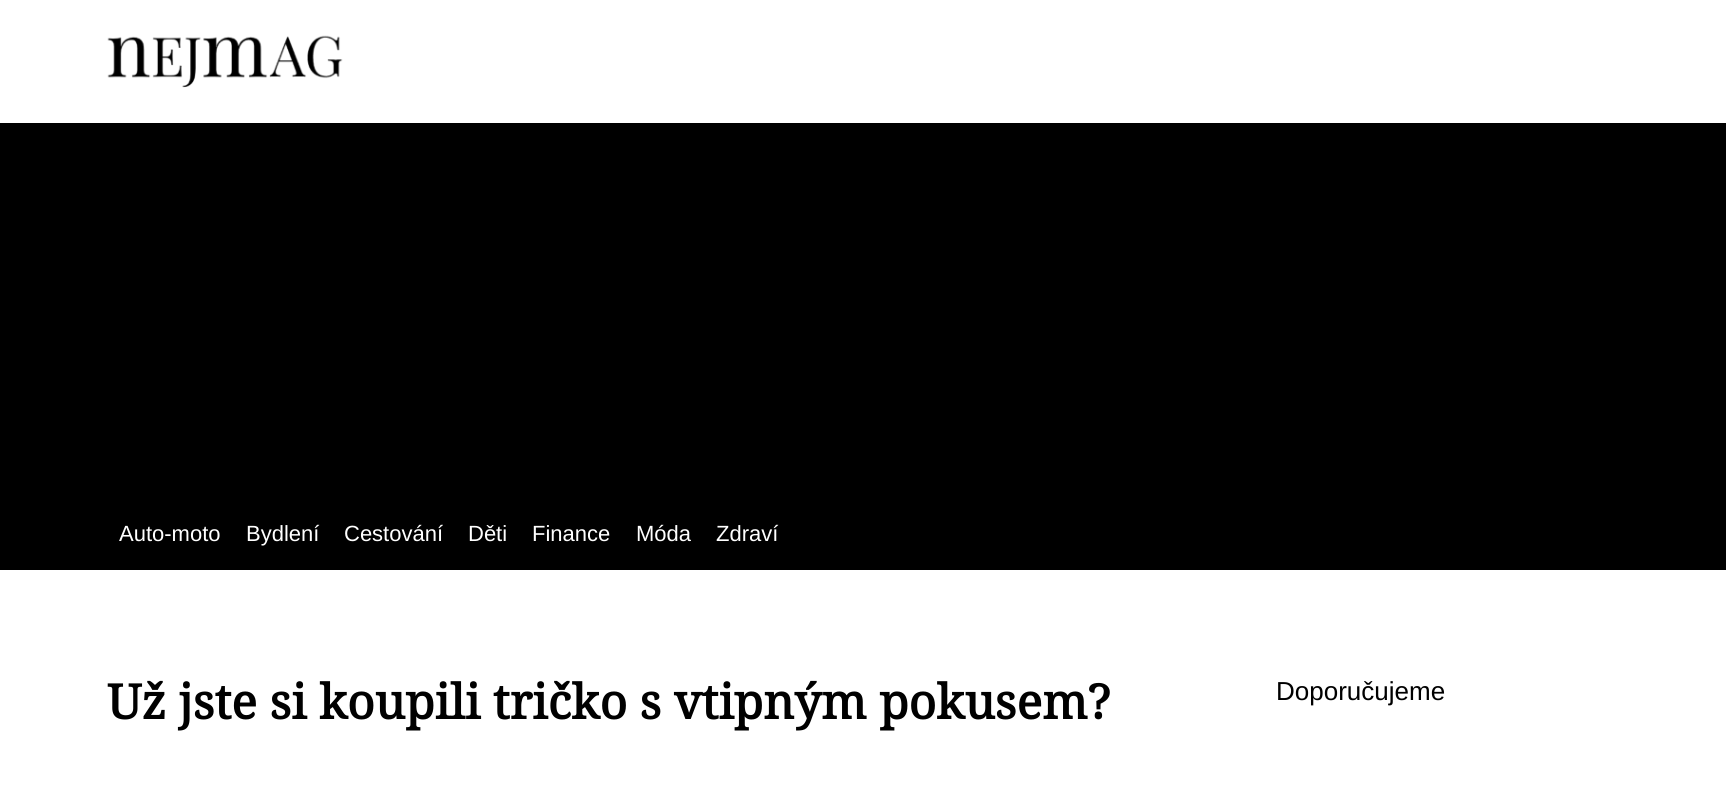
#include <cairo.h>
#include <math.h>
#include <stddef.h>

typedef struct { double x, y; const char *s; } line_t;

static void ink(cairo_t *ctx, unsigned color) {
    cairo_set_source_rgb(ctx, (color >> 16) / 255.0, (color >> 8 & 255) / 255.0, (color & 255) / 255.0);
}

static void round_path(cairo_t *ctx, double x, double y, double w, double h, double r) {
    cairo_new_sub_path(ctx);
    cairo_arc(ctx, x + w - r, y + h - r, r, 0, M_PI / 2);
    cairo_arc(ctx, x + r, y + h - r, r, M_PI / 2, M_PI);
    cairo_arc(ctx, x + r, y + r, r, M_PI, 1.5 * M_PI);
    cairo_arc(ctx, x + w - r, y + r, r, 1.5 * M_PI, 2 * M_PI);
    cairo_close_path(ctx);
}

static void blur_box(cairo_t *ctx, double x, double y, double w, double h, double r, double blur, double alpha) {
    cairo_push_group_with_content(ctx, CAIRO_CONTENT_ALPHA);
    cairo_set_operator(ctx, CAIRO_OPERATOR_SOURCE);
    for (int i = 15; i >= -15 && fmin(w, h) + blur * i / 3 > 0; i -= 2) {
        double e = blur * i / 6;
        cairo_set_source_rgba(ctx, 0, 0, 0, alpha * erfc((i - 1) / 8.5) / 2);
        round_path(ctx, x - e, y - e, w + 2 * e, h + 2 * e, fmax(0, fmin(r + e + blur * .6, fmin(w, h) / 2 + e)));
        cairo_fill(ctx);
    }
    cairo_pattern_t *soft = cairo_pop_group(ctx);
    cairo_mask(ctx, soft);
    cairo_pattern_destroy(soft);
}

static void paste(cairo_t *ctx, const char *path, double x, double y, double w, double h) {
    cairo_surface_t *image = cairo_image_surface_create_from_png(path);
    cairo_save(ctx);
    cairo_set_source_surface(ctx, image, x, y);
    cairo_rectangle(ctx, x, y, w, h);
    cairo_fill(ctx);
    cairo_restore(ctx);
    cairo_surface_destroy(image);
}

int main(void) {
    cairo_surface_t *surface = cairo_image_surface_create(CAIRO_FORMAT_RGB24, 1726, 792);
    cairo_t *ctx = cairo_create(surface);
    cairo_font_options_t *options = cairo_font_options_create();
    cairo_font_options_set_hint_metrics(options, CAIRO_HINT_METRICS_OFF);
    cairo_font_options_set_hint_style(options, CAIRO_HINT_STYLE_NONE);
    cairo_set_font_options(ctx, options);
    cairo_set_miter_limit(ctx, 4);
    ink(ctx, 0xFFFFFF);
    cairo_paint(ctx);
    ink(ctx, 0x000000);
    cairo_rectangle(ctx, 0, 123, 1726, 447);
    cairo_fill(ctx);
    ink(ctx, 0x000000);
    blur_box(ctx, 0, 1, 1726, 123, 0, 6, 0.15);
    ink(ctx, 0xFFFFFF);
    cairo_rectangle(ctx, 0, 0, 1726, 123);
    cairo_fill(ctx);
    paste(ctx, "media/1.png", 107, 35, 236, 53);
    cairo_select_font_face(ctx, "Liberation Sans", CAIRO_FONT_SLANT_NORMAL, CAIRO_FONT_WEIGHT_NORMAL);
    cairo_set_font_size(ctx, 22);
    {
        static const line_t items[] = {
            {119, 541, "Auto-moto"},
            {246, 541, "Bydlení"},
            {344, 541, "Cestování"},
            {468, 541, "Děti"},
            {532, 541, "Finance"},
            {636, 541, "Móda"},
            {716, 541, "Zdraví"},
        };
        for (size_t i = 0; i < sizeof items / sizeof *items; i++) {
            cairo_move_to(ctx, items[i].x, items[i].y);
            cairo_show_text(ctx, items[i].s);
        }
    }
    cairo_select_font_face(ctx, "Noto Serif", CAIRO_FONT_SLANT_NORMAL, CAIRO_FONT_WEIGHT_BOLD);
    cairo_set_font_size(ctx, 48);
    ink(ctx, 0x000000);
    cairo_move_to(ctx, 107, 719);
    cairo_show_text(ctx, "Už jste si koupili tričko s vtipným pokusem?");
    cairo_select_font_face(ctx, "Liberation Sans", CAIRO_FONT_SLANT_NORMAL, CAIRO_FONT_WEIGHT_NORMAL);
    cairo_set_font_size(ctx, 26);
    cairo_move_to(ctx, 1276, 700);
    cairo_show_text(ctx, "Doporučujeme");
    cairo_surface_write_to_png(surface, "image.png");
    cairo_font_options_destroy(options);
    cairo_destroy(ctx);
    cairo_surface_destroy(surface);
    return 0;
}
